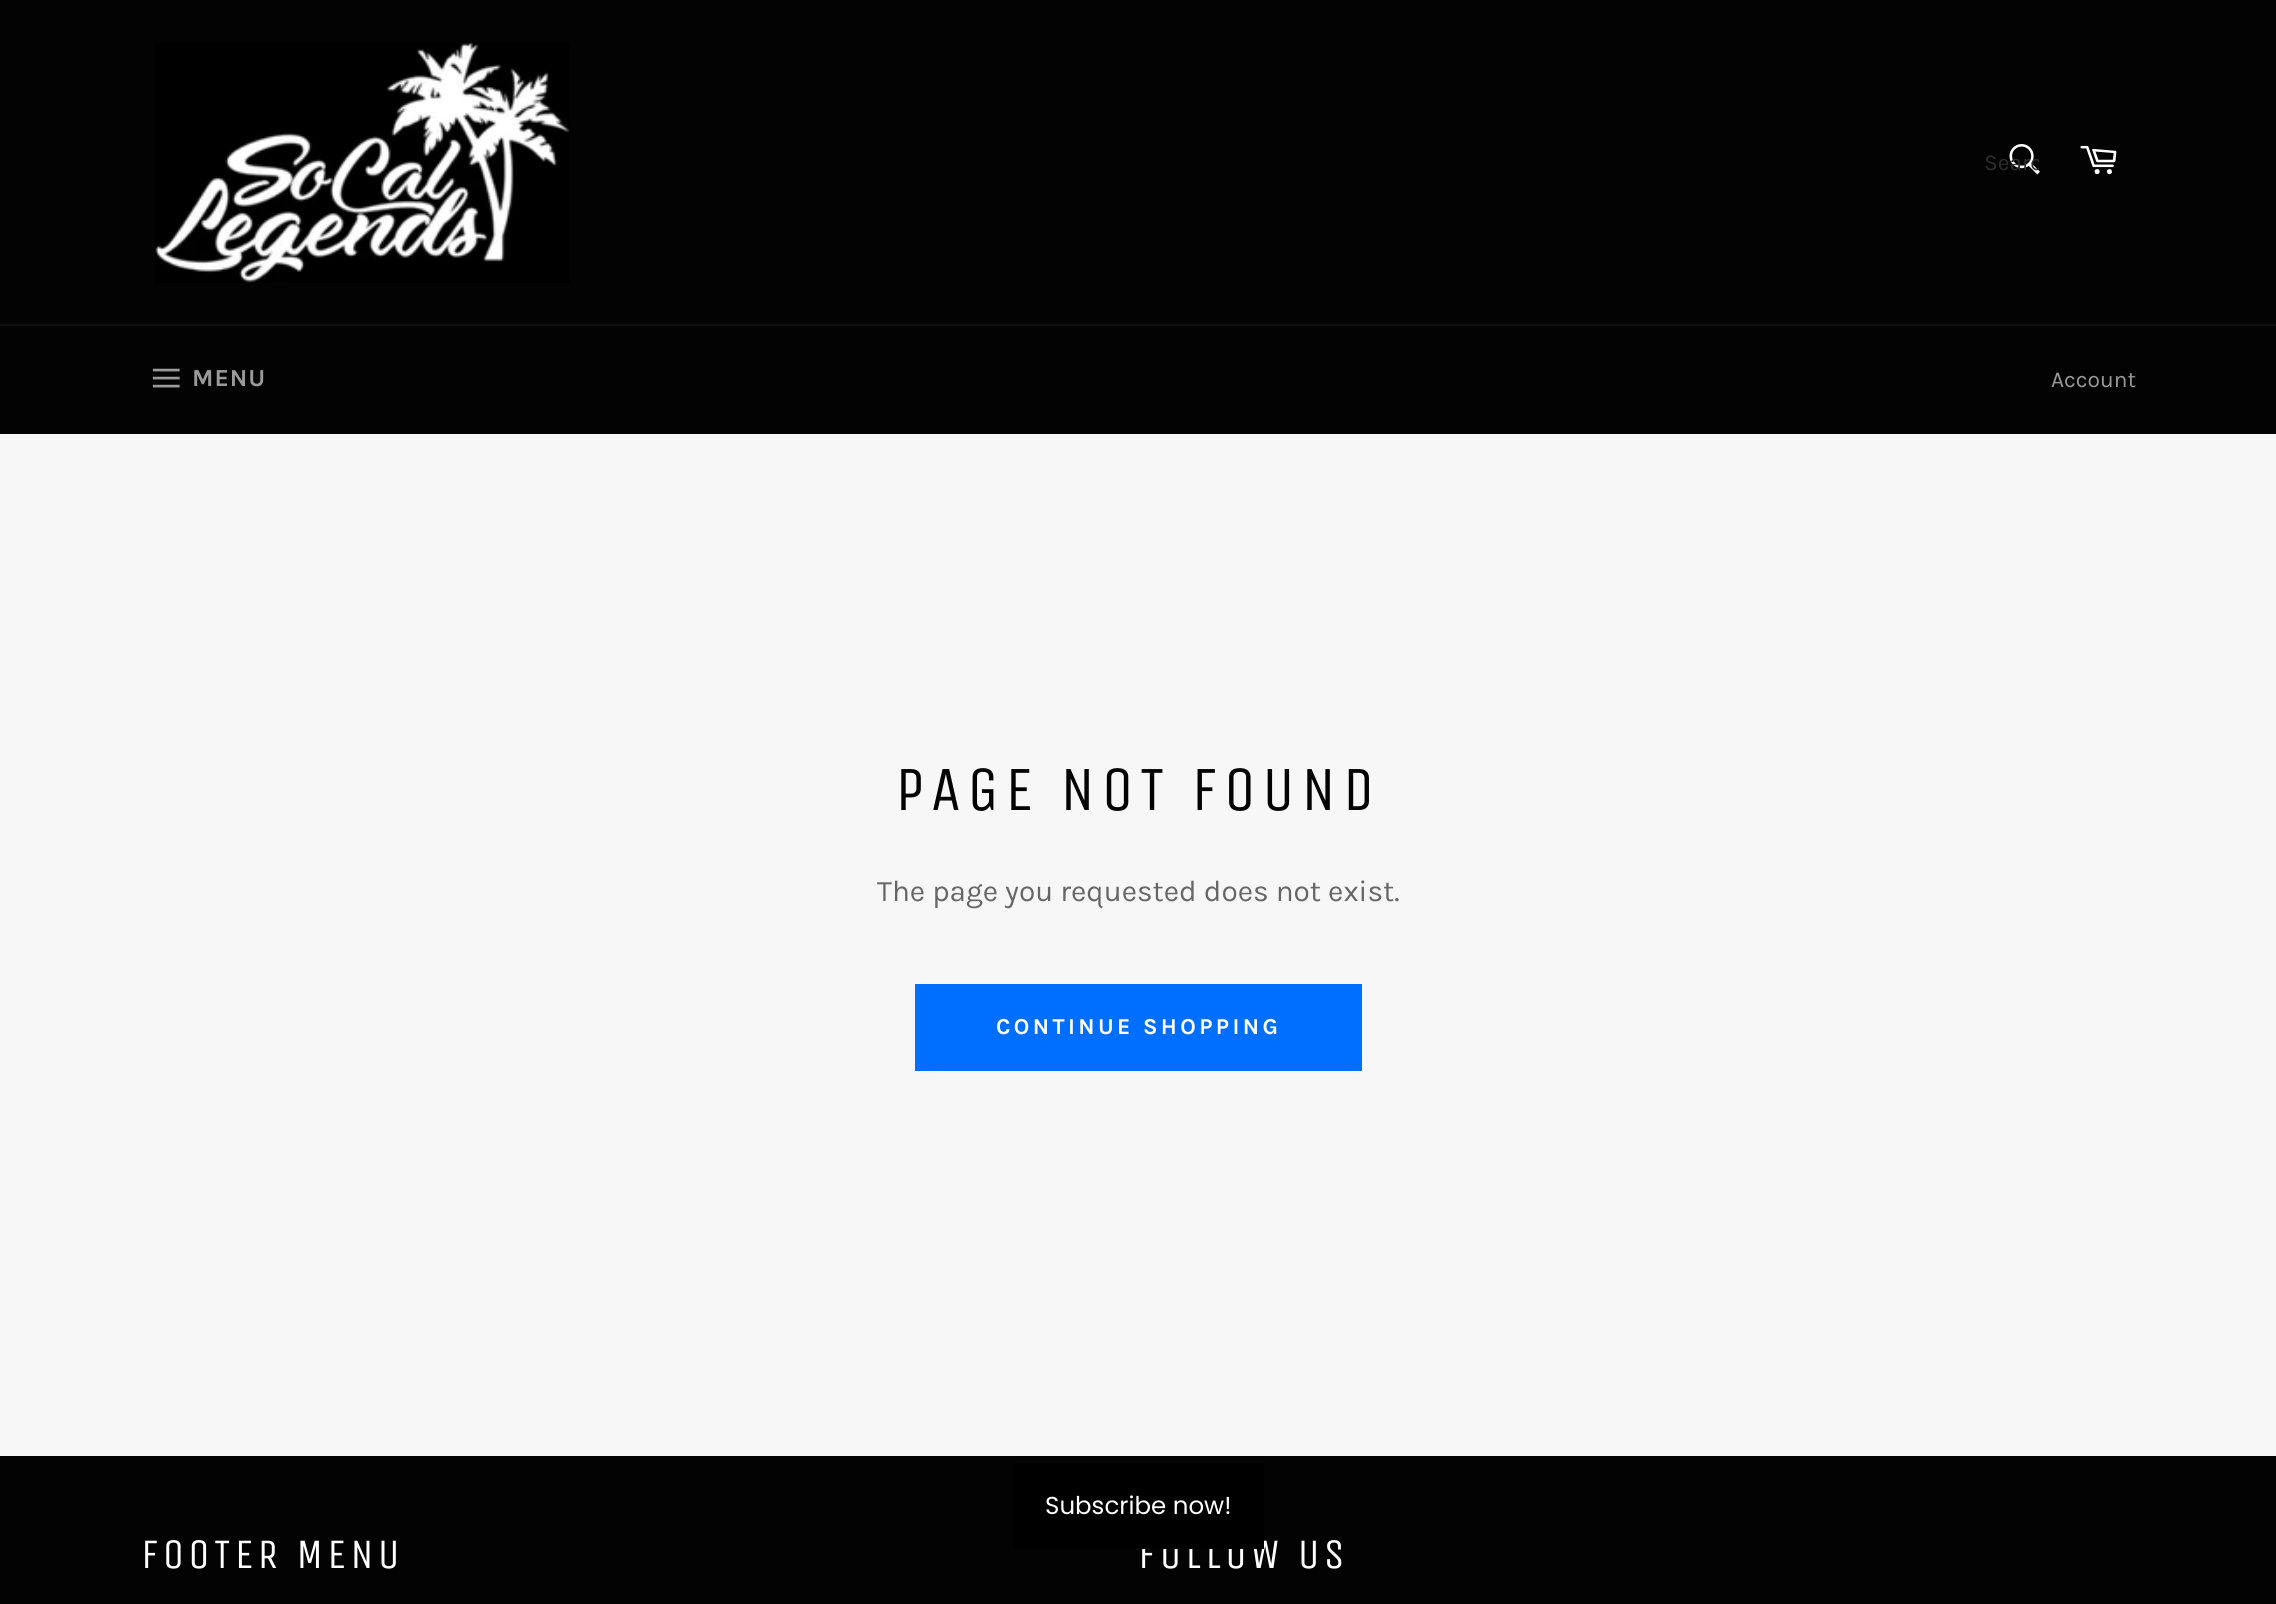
#include <cairo.h>
#include <math.h>
#include <stddef.h>


static void ink(cairo_t *ctx, unsigned color) {
    cairo_set_source_rgb(ctx, (color >> 16) / 255.0, (color >> 8 & 255) / 255.0, (color & 255) / 255.0);
}

static void write_spaced(cairo_t *ctx, double x, double y, const char *s, double letter, double word) {
    cairo_move_to(ctx, x, y);
    while (*s) {
        char ch[5] = {0};
        int n = 0;
        do ch[n++] = *s++; while ((*s & 0xC0) == 0x80);
        cairo_show_text(ctx, ch);
        cairo_rel_move_to(ctx, letter + word * (*ch == ' '), 0);
    }
}

static void paste(cairo_t *ctx, const char *path, double x, double y, double w, double h) {
    cairo_surface_t *image = cairo_image_surface_create_from_png(path);
    cairo_save(ctx);
    cairo_set_source_surface(ctx, image, x, y);
    cairo_rectangle(ctx, x, y, w, h);
    cairo_fill(ctx);
    cairo_restore(ctx);
    cairo_surface_destroy(image);
}

int main(void) {
    cairo_surface_t *surface = cairo_image_surface_create(CAIRO_FORMAT_RGB24, 2276, 1604);
    cairo_t *ctx = cairo_create(surface);
    cairo_font_options_t *options = cairo_font_options_create();
    cairo_font_options_set_hint_metrics(options, CAIRO_HINT_METRICS_OFF);
    cairo_font_options_set_hint_style(options, CAIRO_HINT_STYLE_NONE);
    cairo_set_font_options(ctx, options);
    cairo_set_miter_limit(ctx, 4);
    ink(ctx, 0xF7F7F7);
    cairo_paint(ctx);
    ink(ctx, 0x030303);
    cairo_rectangle(ctx, 0, 0, 2276, 324);
    cairo_fill(ctx);
    paste(ctx, "media/1.png", 155, 42, 415, 241);
    paste(ctx, "media/2.png", 2009, 144, 31, 31);
    cairo_save(ctx);
    cairo_rectangle(ctx, 1983, 149, 56, 26);
    cairo_clip(ctx);
    cairo_select_font_face(ctx, "Karla", CAIRO_FONT_SLANT_NORMAL, CAIRO_FONT_WEIGHT_NORMAL);
    cairo_set_font_size(ctx, 22.75);
    ink(ctx, 0x2C2C2C);
    cairo_move_to(ctx, 1984, 170);
    cairo_show_text(ctx, "Searc");
    cairo_restore(ctx);
    paste(ctx, "media/3.png", 2080, 145, 37, 30);
    cairo_rectangle(ctx, 0, 326, 2276, 108);
    cairo_fill(ctx);
    ink(ctx, 0x101010);
    cairo_rectangle(ctx, 0, 324, 2276, 2);
    cairo_fill(ctx);
    paste(ctx, "media/4.png", 152, 368, 28, 20);
    cairo_select_font_face(ctx, "Karla", CAIRO_FONT_SLANT_NORMAL, CAIRO_FONT_WEIGHT_BOLD);
    cairo_set_font_size(ctx, 24.5);
    ink(ctx, 0x9A9A9A);
    write_spaced(ctx, 192, 386, "MENU", 1, 0);
    cairo_select_font_face(ctx, "Karla", CAIRO_FONT_SLANT_NORMAL, CAIRO_FONT_WEIGHT_NORMAL);
    cairo_set_font_size(ctx, 22.75);
    cairo_move_to(ctx, 2051, 387);
    cairo_show_text(ctx, "Account");
    cairo_select_font_face(ctx, "Unica One", CAIRO_FONT_SLANT_NORMAL, CAIRO_FONT_WEIGHT_NORMAL);
    cairo_set_font_size(ctx, 63);
    ink(ctx, 0x030303);
    write_spaced(ctx, 895, 810, "PAGE NOT FOUND", 6.25, 0);
    cairo_select_font_face(ctx, "Karla", CAIRO_FONT_SLANT_NORMAL, CAIRO_FONT_WEIGHT_NORMAL);
    cairo_set_font_size(ctx, 29.75);
    ink(ctx, 0x666666);
    cairo_move_to(ctx, 877, 901);
    cairo_show_text(ctx, "The page you requested does not exist.");
    ink(ctx, 0x006EFF);
    cairo_rectangle(ctx, 915, 984, 447, 87);
    cairo_fill(ctx);
    cairo_select_font_face(ctx, "Karla", CAIRO_FONT_SLANT_NORMAL, CAIRO_FONT_WEIGHT_BOLD);
    cairo_set_font_size(ctx, 22.75);
    ink(ctx, 0xFFFFFF);
    write_spaced(ctx, 996, 1034, "CONTINUE SHOPPING", 3.4, 0);
    ink(ctx, 0x030303);
    cairo_rectangle(ctx, 0, 1456, 2276, 148);
    cairo_fill(ctx);
    cairo_select_font_face(ctx, "Unica One", CAIRO_FONT_SLANT_NORMAL, CAIRO_FONT_WEIGHT_NORMAL);
    cairo_set_font_size(ctx, 42);
    ink(ctx, 0xFFFFFF);
    write_spaced(ctx, 141, 1568, "FOOTER MENU", 4.25, 0);
    write_spaced(ctx, 1138, 1568, "FOLLOW US", 4.25, 0);
    ink(ctx, 0x000000);
    cairo_rectangle(ctx, 1013, 1463, 251, 86);
    cairo_fill(ctx);
    cairo_select_font_face(ctx, "Poppins", CAIRO_FONT_SLANT_NORMAL, CAIRO_FONT_WEIGHT_NORMAL);
    cairo_set_font_size(ctx, 24.5);
    ink(ctx, 0xFFFFFF);
    cairo_move_to(ctx, 1045, 1514);
    cairo_show_text(ctx, "Subscribe now!");
    cairo_surface_write_to_png(surface, "image.png");
    cairo_font_options_destroy(options);
    cairo_destroy(ctx);
    cairo_surface_destroy(surface);
    return 0;
}
